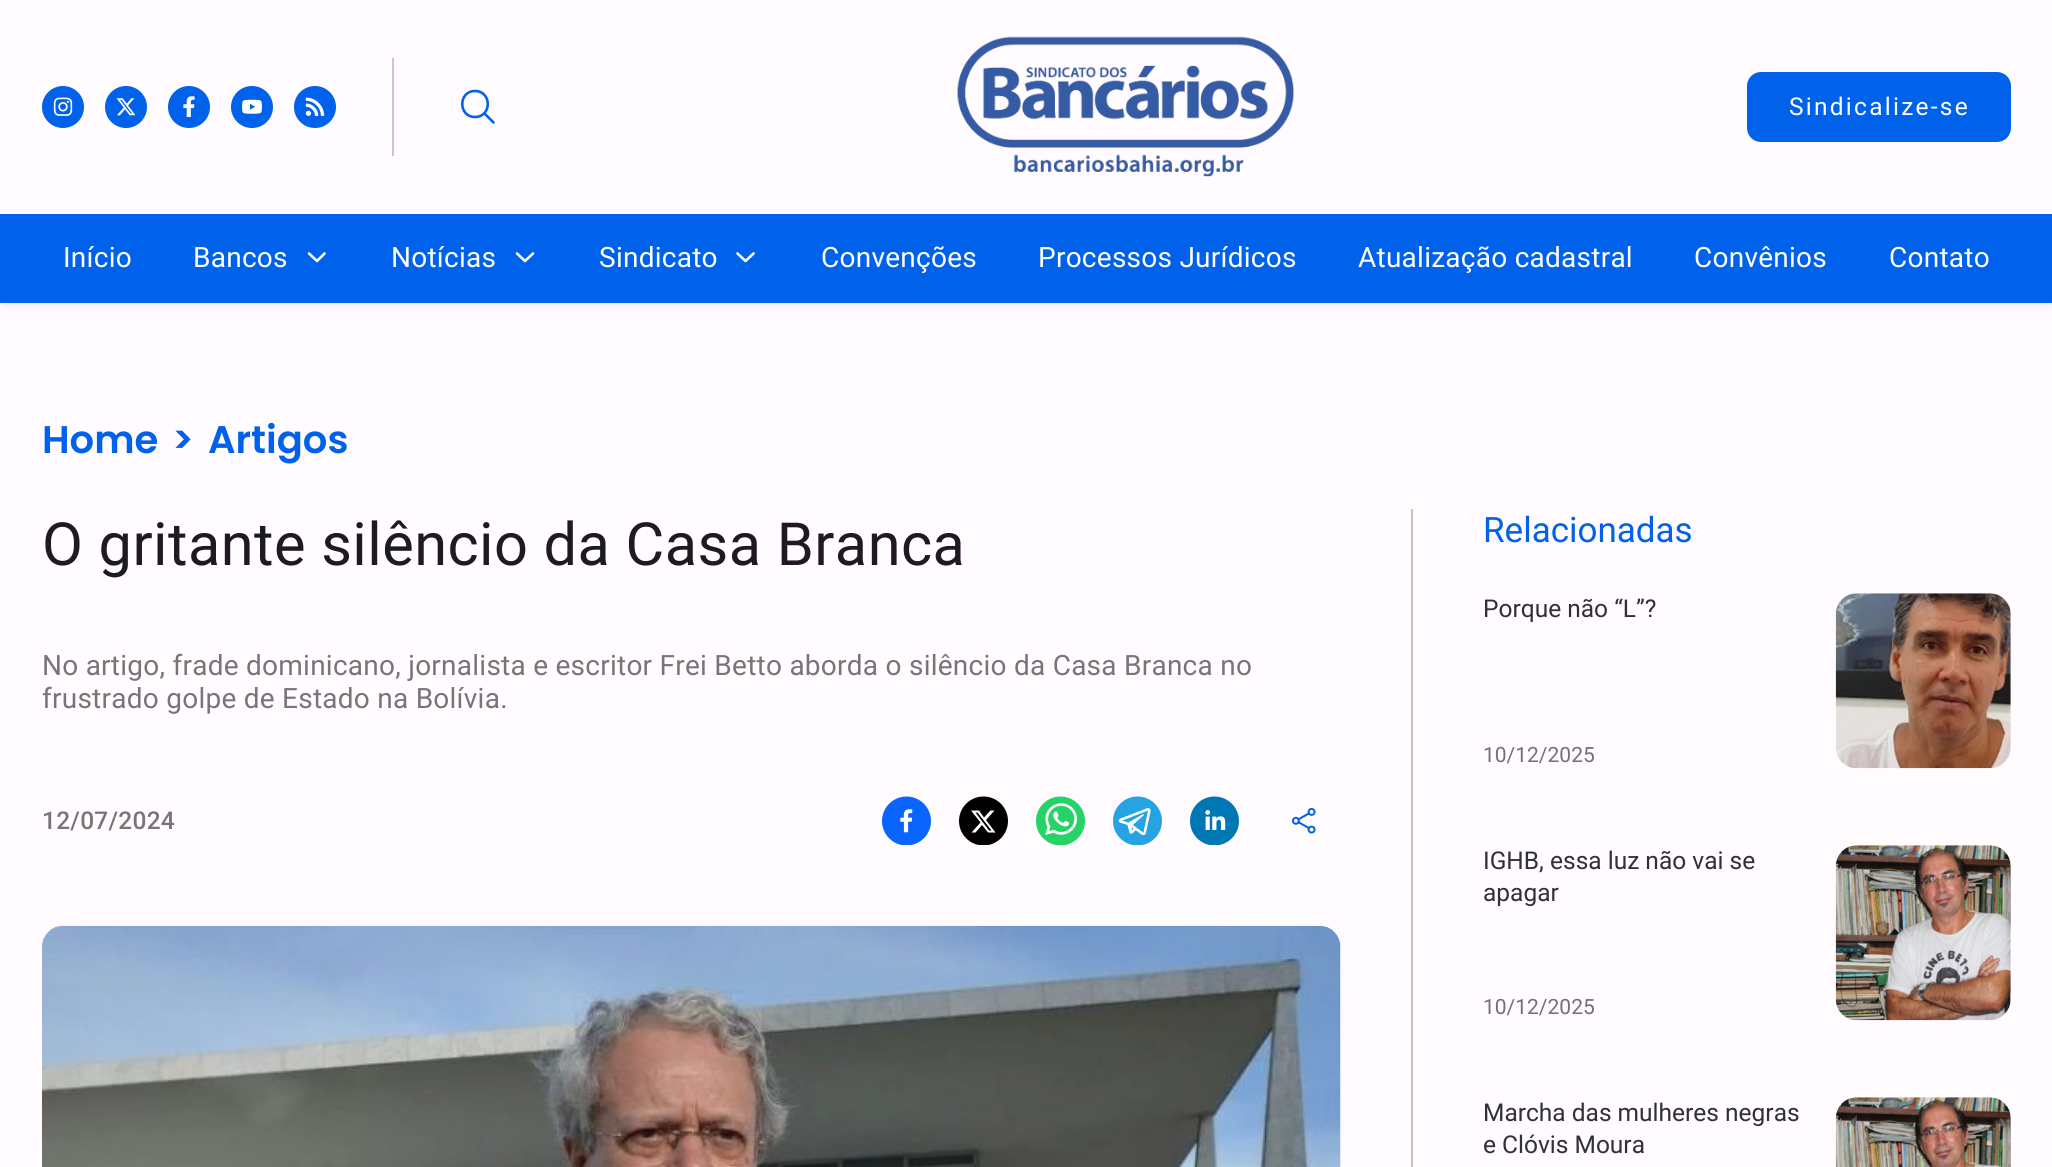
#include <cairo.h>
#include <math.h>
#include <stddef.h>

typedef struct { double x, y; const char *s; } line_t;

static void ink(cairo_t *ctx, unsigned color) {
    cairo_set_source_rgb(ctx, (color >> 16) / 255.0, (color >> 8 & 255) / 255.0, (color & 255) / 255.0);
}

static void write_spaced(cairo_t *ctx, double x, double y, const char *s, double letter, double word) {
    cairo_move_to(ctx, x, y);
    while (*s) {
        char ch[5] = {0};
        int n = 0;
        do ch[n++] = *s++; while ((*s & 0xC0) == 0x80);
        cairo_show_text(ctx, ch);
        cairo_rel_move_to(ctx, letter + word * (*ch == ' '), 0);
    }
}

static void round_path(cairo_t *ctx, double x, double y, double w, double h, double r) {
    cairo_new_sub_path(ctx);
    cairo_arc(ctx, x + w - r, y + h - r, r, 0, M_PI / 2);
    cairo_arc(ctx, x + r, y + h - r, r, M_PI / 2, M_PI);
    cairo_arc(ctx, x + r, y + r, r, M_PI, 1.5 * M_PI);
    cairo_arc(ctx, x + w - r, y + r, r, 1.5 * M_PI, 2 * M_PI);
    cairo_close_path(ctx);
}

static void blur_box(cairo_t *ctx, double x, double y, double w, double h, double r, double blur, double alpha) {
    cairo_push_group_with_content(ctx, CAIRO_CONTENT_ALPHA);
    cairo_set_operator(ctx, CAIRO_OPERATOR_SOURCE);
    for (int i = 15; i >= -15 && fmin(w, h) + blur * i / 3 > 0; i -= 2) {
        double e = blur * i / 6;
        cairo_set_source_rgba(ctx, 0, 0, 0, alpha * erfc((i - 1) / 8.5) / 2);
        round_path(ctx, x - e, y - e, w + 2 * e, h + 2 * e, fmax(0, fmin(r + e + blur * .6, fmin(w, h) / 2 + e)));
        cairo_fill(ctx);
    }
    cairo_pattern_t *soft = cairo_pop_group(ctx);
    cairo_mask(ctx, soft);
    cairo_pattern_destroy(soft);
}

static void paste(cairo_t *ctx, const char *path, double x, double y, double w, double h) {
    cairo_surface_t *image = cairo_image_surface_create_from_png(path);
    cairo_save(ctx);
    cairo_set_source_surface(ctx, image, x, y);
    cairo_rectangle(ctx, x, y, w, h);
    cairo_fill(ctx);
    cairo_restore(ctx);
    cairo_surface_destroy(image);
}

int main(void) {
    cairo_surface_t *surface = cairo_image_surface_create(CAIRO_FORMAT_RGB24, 2052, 1167);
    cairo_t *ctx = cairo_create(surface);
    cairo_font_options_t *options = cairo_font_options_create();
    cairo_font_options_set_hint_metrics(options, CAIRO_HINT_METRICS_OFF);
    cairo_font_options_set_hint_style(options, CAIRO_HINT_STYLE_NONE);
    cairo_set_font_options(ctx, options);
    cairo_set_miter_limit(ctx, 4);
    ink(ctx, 0xFFFBFE);
    cairo_paint(ctx);
    ink(ctx, 0x101828);
    blur_box(ctx, 4, 7, 2045, 296, 0, 3.5, 0.06);
    blur_box(ctx, 4, 7, 2045, 296, 0, 7, 0.1);
    ink(ctx, 0xFFFBFE);
    cairo_rectangle(ctx, 0, 0, 2052, 214);
    cairo_fill(ctx);
    ink(ctx, 0x0061EB);
    cairo_arc(ctx, 63, 107, 21, 0, 2 * M_PI);
    cairo_fill(ctx);
    paste(ctx, "media/1.png", 53, 97, 20, 19);
    cairo_arc(ctx, 126, 107, 21, 0, 2 * M_PI);
    cairo_fill(ctx);
    paste(ctx, "media/2.png", 116, 98, 20, 18);
    cairo_arc(ctx, 189, 107, 21, 0, 2 * M_PI);
    cairo_fill(ctx);
    paste(ctx, "media/3.png", 183, 96, 12, 21);
    cairo_arc(ctx, 252, 107, 21, 0, 2 * M_PI);
    cairo_fill(ctx);
    paste(ctx, "media/4.png", 242, 99, 20, 15);
    cairo_arc(ctx, 315, 107, 21, 0, 2 * M_PI);
    cairo_fill(ctx);
    paste(ctx, "media/5.png", 305, 97, 20, 19);
    ink(ctx, 0xC9C5CA);
    cairo_rectangle(ctx, 392, 58, 2, 98);
    cairo_fill(ctx);
    cairo_new_path(ctx);
    cairo_move_to(ctx, 475, 91);
    cairo_curve_to(ctx, 458, 91, 458, 117, 475, 117);
    cairo_curve_to(ctx, 492, 117, 492, 91, 475, 91);
    cairo_close_path(ctx);
    ink(ctx, 0x0061EB);
    cairo_set_line_width(ctx, 2.6);
    cairo_stroke(ctx);
    cairo_new_path(ctx);
    cairo_move_to(ctx, 484.5, 113.5);
    cairo_line_to(ctx, 493.5, 122.5);
    cairo_set_line_cap(ctx, CAIRO_LINE_CAP_ROUND);
    cairo_stroke(ctx);
    paste(ctx, "media/6.png", 957, 36, 337, 141);
    round_path(ctx, 1747, 72, 264, 70, 14);
    cairo_fill(ctx);
    cairo_select_font_face(ctx, "Roboto", CAIRO_FONT_SLANT_NORMAL, CAIRO_FONT_WEIGHT_NORMAL);
    cairo_set_font_size(ctx, 24.5);
    ink(ctx, 0xFFFFFF);
    write_spaced(ctx, 1789, 115, "Sindicalize-se", 2.25, 0);
    ink(ctx, 0x0061EB);
    cairo_rectangle(ctx, 0, 214, 2052, 89);
    cairo_fill(ctx);
    cairo_set_font_size(ctx, 28);
    ink(ctx, 0xFFFFFF);
    write_spaced(ctx, 63, 267, "Início", 0.25, 0);
    write_spaced(ctx, 193, 267, "Bancos", 0.25, 0);
    cairo_new_path(ctx);
    cairo_move_to(ctx, 309, 253.5);
    cairo_line_to(ctx, 317, 261);
    cairo_line_to(ctx, 324.5, 253.5);
    cairo_set_line_join(ctx, CAIRO_LINE_JOIN_ROUND);
    cairo_stroke(ctx);
    write_spaced(ctx, 391, 267, "Notícias", 0.25, 0);
    cairo_new_path(ctx);
    cairo_move_to(ctx, 517, 253.5);
    cairo_line_to(ctx, 525, 261);
    cairo_line_to(ctx, 533, 253.5);
    cairo_stroke(ctx);
    write_spaced(ctx, 599, 267, "Sindicato", 0.25, 0);
    cairo_new_path(ctx);
    cairo_move_to(ctx, 737.5, 253.5);
    cairo_line_to(ctx, 745.5, 261);
    cairo_line_to(ctx, 753.5, 253.5);
    cairo_stroke(ctx);
    {
        static const line_t items[] = {
            {821, 267, "Convenções"},
            {1038, 267, "Processos Jurídicos"},
            {1358, 267, "Atualização cadastral"},
            {1694, 267, "Convênios"},
            {1889, 267, "Contato"},
        };
        for (size_t i = 0; i < sizeof items / sizeof *items; i++) {
            write_spaced(ctx, items[i].x, items[i].y, items[i].s, 0.25, 0);
        }
    }
    cairo_select_font_face(ctx, "Poppins SemiBold", CAIRO_FONT_SLANT_NORMAL, CAIRO_FONT_WEIGHT_NORMAL);
    cairo_set_font_size(ctx, 38.5);
    ink(ctx, 0x0061EB);
    {
        static const line_t items[] = {
            {42, 453, "Home"},
            {172, 453, ">"},
            {208, 453, "Artigos"},
        };
        for (size_t i = 0; i < sizeof items / sizeof *items; i++) {
            cairo_move_to(ctx, items[i].x, items[i].y);
            cairo_show_text(ctx, items[i].s);
        }
    }
    cairo_select_font_face(ctx, "Roboto", CAIRO_FONT_SLANT_NORMAL, CAIRO_FONT_WEIGHT_NORMAL);
    cairo_set_font_size(ctx, 59.5);
    ink(ctx, 0x1C1B1F);
    write_spaced(ctx, 42, 565, "O gritante silêncio da Casa Branca", 0.45, 0);
    cairo_set_font_size(ctx, 28);
    ink(ctx, 0x787579);
    write_spaced(ctx, 42, 675, "No artigo, frade dominicano, jornalista e escritor Frei Betto aborda o silêncio da Casa Branca no", 0.25, 0);
    write_spaced(ctx, 42, 708, "frustrado golpe de Estado na Bolívia.", 0.25, 0);
    cairo_select_font_face(ctx, "Roboto Medium", CAIRO_FONT_SLANT_NORMAL, CAIRO_FONT_WEIGHT_NORMAL);
    cairo_set_font_size(ctx, 24.5);
    write_spaced(ctx, 42, 829, "12/07/2024", 0.25, 0);
    paste(ctx, "media/7.png", 882, 796, 49, 49);
    cairo_save(ctx);
    cairo_rectangle(ctx, 959, 796, 49, 49);
    cairo_clip(ctx);
    ink(ctx, 0x000000);
    cairo_arc(ctx, 983.5, 821, 24.5, 0, 2 * M_PI);
    cairo_fill(ctx);
    cairo_restore(ctx);
    ink(ctx, 0xFFFFFF);
    cairo_new_path(ctx);
    cairo_move_to(ctx, 990.5, 810.5);
    cairo_line_to(ctx, 994.5, 810.5);
    cairo_line_to(ctx, 986, 820);
    cairo_line_to(ctx, 995.5, 832.5);
    cairo_line_to(ctx, 988, 832.5);
    cairo_line_to(ctx, 982, 825);
    cairo_line_to(ctx, 975.5, 832.5);
    cairo_line_to(ctx, 971.5, 832.5);
    cairo_line_to(ctx, 980.5, 822.5);
    cairo_line_to(ctx, 971, 810.5);
    cairo_line_to(ctx, 979, 810.5);
    cairo_line_to(ctx, 984, 817.5);
    cairo_close_path(ctx);
    cairo_move_to(ctx, 989, 830.5);
    cairo_line_to(ctx, 991.5, 830.5);
    cairo_line_to(ctx, 977.5, 812.5);
    cairo_line_to(ctx, 975.5, 812.5);
    cairo_close_path(ctx);
    cairo_fill(ctx);
    paste(ctx, "media/8.png", 1036, 796, 49, 49);
    paste(ctx, "media/9.png", 1113, 796, 49, 49);
    paste(ctx, "media/10.png", 1190, 796, 49, 49);
    paste(ctx, "media/11.png", 1291, 807, 25, 27);
    paste(ctx, "media/12.png", 42, 925, 1299, 242);
    ink(ctx, 0xC4C4C4);
    cairo_rectangle(ctx, 1411, 509, 2, 658);
    cairo_fill(ctx);
    cairo_select_font_face(ctx, "Roboto", CAIRO_FONT_SLANT_NORMAL, CAIRO_FONT_WEIGHT_NORMAL);
    cairo_set_font_size(ctx, 35);
    ink(ctx, 0x0061EB);
    cairo_move_to(ctx, 1483, 542);
    cairo_show_text(ctx, "Relacionadas");
    cairo_set_font_size(ctx, 24.5);
    ink(ctx, 0x2F3134);
    cairo_move_to(ctx, 1483, 617);
    cairo_show_text(ctx, "Porque não “L”?");
    cairo_set_font_size(ctx, 21);
    ink(ctx, 0x6E727A);
    cairo_move_to(ctx, 1483, 762);
    cairo_show_text(ctx, "10/12/2025");
    paste(ctx, "media/13.png", 1835, 593, 176, 176);
    cairo_set_font_size(ctx, 24.5);
    ink(ctx, 0x2F3134);
    cairo_move_to(ctx, 1483, 869);
    cairo_show_text(ctx, "IGHB, essa luz não vai se");
    cairo_move_to(ctx, 1483, 901);
    cairo_show_text(ctx, "apagar");
    cairo_set_font_size(ctx, 21);
    ink(ctx, 0x6E727A);
    cairo_move_to(ctx, 1483, 1014);
    cairo_show_text(ctx, "10/12/2025");
    paste(ctx, "media/14.png", 1835, 845, 176, 176);
    cairo_set_font_size(ctx, 24.5);
    ink(ctx, 0x2F3134);
    cairo_move_to(ctx, 1483, 1121);
    cairo_show_text(ctx, "Marcha das mulheres negras");
    cairo_move_to(ctx, 1483, 1153);
    cairo_show_text(ctx, "e Clóvis Moura");
    paste(ctx, "media/15.png", 1835, 1097, 176, 70);
    cairo_surface_write_to_png(surface, "image.png");
    cairo_font_options_destroy(options);
    cairo_destroy(ctx);
    cairo_surface_destroy(surface);
    return 0;
}
